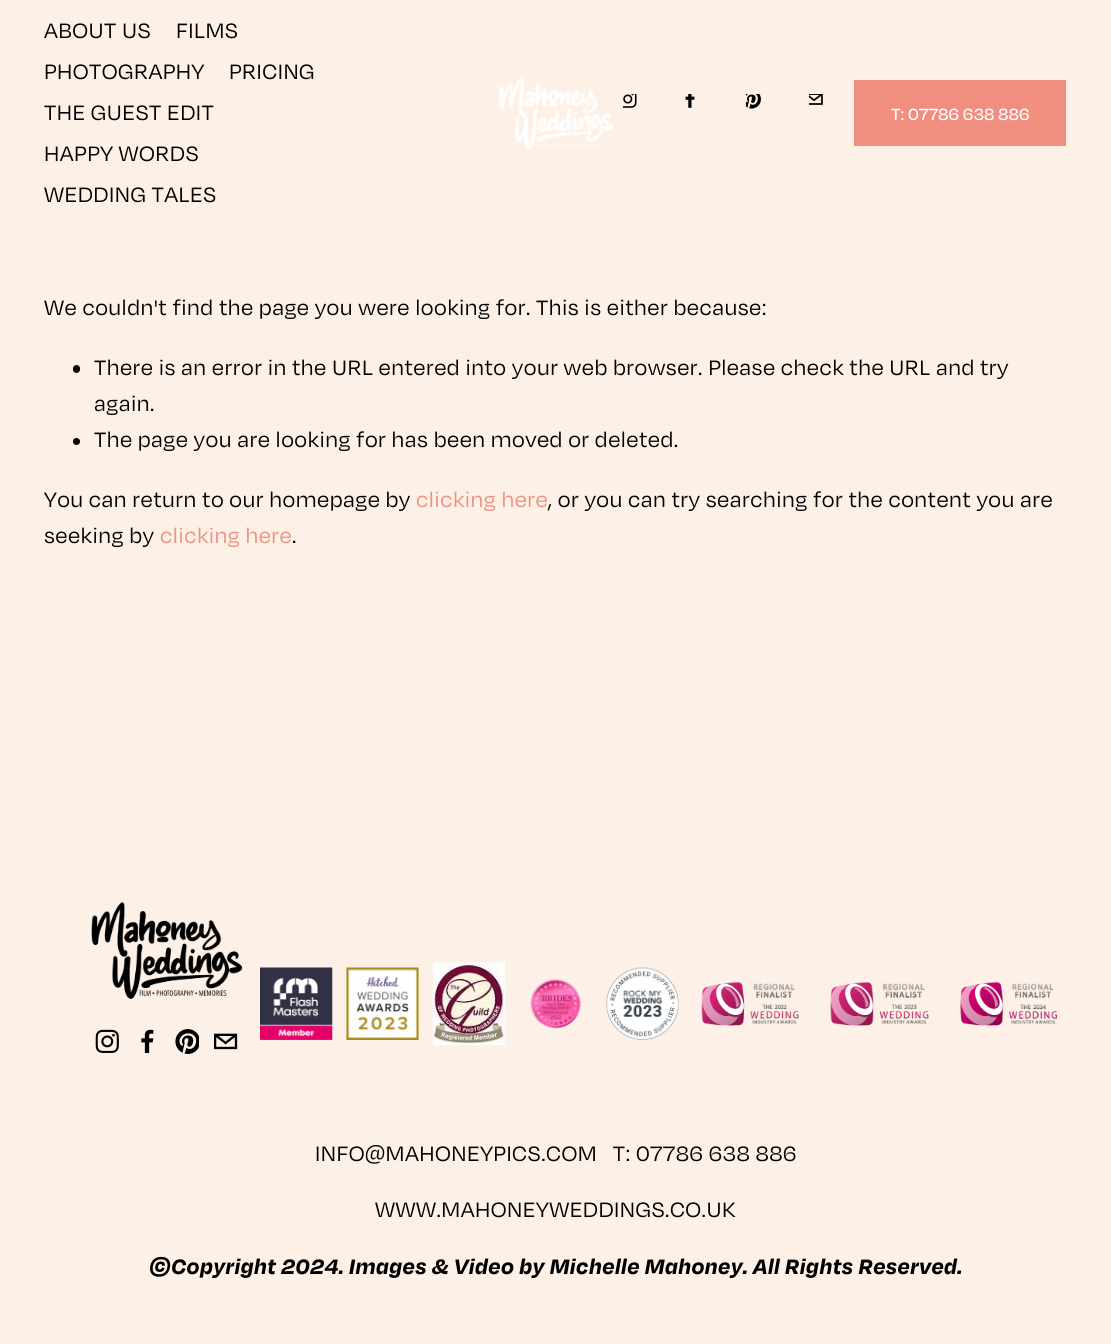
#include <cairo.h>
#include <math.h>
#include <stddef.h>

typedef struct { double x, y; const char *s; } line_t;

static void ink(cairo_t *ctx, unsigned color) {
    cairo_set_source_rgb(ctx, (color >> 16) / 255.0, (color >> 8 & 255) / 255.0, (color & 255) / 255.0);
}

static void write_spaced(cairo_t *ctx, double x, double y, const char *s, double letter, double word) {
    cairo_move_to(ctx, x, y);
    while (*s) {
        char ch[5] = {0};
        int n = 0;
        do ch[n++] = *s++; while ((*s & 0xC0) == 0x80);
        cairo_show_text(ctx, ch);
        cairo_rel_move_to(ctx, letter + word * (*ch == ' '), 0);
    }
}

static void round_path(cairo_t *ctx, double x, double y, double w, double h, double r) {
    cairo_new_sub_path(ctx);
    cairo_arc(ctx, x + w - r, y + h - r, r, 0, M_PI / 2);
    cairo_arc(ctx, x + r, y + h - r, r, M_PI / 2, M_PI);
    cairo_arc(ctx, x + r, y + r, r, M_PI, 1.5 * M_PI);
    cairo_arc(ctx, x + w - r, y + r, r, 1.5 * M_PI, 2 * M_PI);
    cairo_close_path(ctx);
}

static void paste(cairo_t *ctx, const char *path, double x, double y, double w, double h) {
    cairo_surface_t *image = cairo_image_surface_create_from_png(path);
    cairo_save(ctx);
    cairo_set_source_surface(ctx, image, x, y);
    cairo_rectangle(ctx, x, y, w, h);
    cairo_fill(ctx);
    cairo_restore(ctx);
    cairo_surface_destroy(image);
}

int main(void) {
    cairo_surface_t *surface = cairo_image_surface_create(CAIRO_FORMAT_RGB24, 1111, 1344);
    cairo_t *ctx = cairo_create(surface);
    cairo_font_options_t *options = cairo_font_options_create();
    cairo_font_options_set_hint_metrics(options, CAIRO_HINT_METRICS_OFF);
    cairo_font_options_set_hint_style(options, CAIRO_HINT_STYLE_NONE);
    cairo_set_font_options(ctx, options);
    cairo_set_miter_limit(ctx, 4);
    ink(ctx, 0xFDF0E6);
    cairo_paint(ctx);
    cairo_select_font_face(ctx, "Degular", CAIRO_FONT_SLANT_NORMAL, CAIRO_FONT_WEIGHT_NORMAL);
    cairo_set_font_size(ctx, 24);
    ink(ctx, 0x000000);
    {
        static const line_t items[] = {
            {44, 38, "ABOUT US"},
            {176, 38, "FILMS"},
            {44, 79, "PHOTOGRAPHY"},
            {229, 79, "PRICING"},
            {44, 120, "THE GUEST EDIT"},
            {44, 161, "HAPPY WORDS"},
            {44, 202, "WEDDING TALES"},
        };
        for (size_t i = 0; i < sizeof items / sizeof *items; i++) {
            write_spaced(ctx, items[i].x, items[i].y, items[i].s, 0.48, 0);
        }
    }
    paste(ctx, "media/1.png", 498, 76, 116, 75);
    paste(ctx, "media/2.png", 623, 94, 14, 14);
    paste(ctx, "media/3.png", 685, 94, 10, 14);
    paste(ctx, "media/4.png", 746, 94, 15, 15);
    paste(ctx, "media/5.png", 809, 94, 14, 11);
    ink(ctx, 0xF08E80);
    cairo_rectangle(ctx, 854, 80, 212, 66);
    cairo_fill(ctx);
    cairo_select_font_face(ctx, "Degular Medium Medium", CAIRO_FONT_SLANT_NORMAL, CAIRO_FONT_WEIGHT_NORMAL);
    cairo_set_font_size(ctx, 18.75);
    ink(ctx, 0xFFFFFF);
    cairo_move_to(ctx, 891, 120);
    cairo_show_text(ctx, "T: 07786 638 886");
    cairo_select_font_face(ctx, "Degular", CAIRO_FONT_SLANT_NORMAL, CAIRO_FONT_WEIGHT_NORMAL);
    cairo_set_font_size(ctx, 24);
    ink(ctx, 0x000000);
    write_spaced(ctx, 44, 315, "We couldn't find the page you were looking for. This is either because:", 0.48, 0);
    round_path(ctx, 73, 365, 7, 8, 3.5);
    cairo_fill(ctx);
    write_spaced(ctx, 94, 375, "There is an error in the URL entered into your web browser. Please check the URL and try", 0.48, 0);
    write_spaced(ctx, 94, 411, "again.", 0.48, 0);
    cairo_new_path(ctx);
    cairo_arc(ctx, 76.5, 441.5, 3.5, 0, 2 * M_PI);
    cairo_fill(ctx);
    write_spaced(ctx, 94, 447, "The page you are looking for has been moved or deleted.", 0.48, 0);
    write_spaced(ctx, 44, 507, "You can return to our homepage by", 0.48, 0);
    ink(ctx, 0xF08E80);
    write_spaced(ctx, 416, 507, "clicking here", 0.48, 0);
    ink(ctx, 0x000000);
    write_spaced(ctx, 548, 507, ", or you can try searching for the content you are", 0.48, 0);
    write_spaced(ctx, 44, 543, "seeking by", 0.48, 0);
    ink(ctx, 0xF08E80);
    write_spaced(ctx, 160, 543, "clicking here", 0.48, 0);
    ink(ctx, 0x000000);
    write_spaced(ctx, 292, 543, ".", 0.48, 0);
    paste(ctx, "media/6.png", 91, 902, 152, 97);
    paste(ctx, "media/7.png", 260, 967, 73, 73);
    paste(ctx, "media/8.png", 346, 967, 73, 73);
    paste(ctx, "media/9.png", 432, 962, 73, 83);
    paste(ctx, "media/10.png", 530, 979, 51, 50);
    paste(ctx, "media/11.png", 606, 967, 73, 73);
    paste(ctx, "media/12.png", 701, 981, 98, 45);
    paste(ctx, "media/13.png", 830, 981, 99, 45);
    paste(ctx, "media/14.png", 960, 981, 97, 45);
    paste(ctx, "media/15.png", 95, 1029, 24, 24);
    paste(ctx, "media/16.png", 141, 1029, 13, 24);
    paste(ctx, "media/17.png", 175, 1029, 24, 25);
    paste(ctx, "media/18.png", 214, 1033, 24, 17);
    write_spaced(ctx, 315, 1161, "INFO@MAHONEYPICS.COM   T: 07786 638 886", 0.48, 0);
    write_spaced(ctx, 375, 1217, "WWW.MAHONEYWEDDINGS.CO.UK", 0.48, 0);
    cairo_select_font_face(ctx, "Degular", CAIRO_FONT_SLANT_ITALIC, CAIRO_FONT_WEIGHT_BOLD);
    write_spaced(ctx, 149, 1274, "©Copyright 2024. Images & Video by Michelle Mahoney. All Rights Reserved.", 0.48, 0);
    cairo_surface_write_to_png(surface, "image.png");
    cairo_font_options_destroy(options);
    cairo_destroy(ctx);
    cairo_surface_destroy(surface);
    return 0;
}
